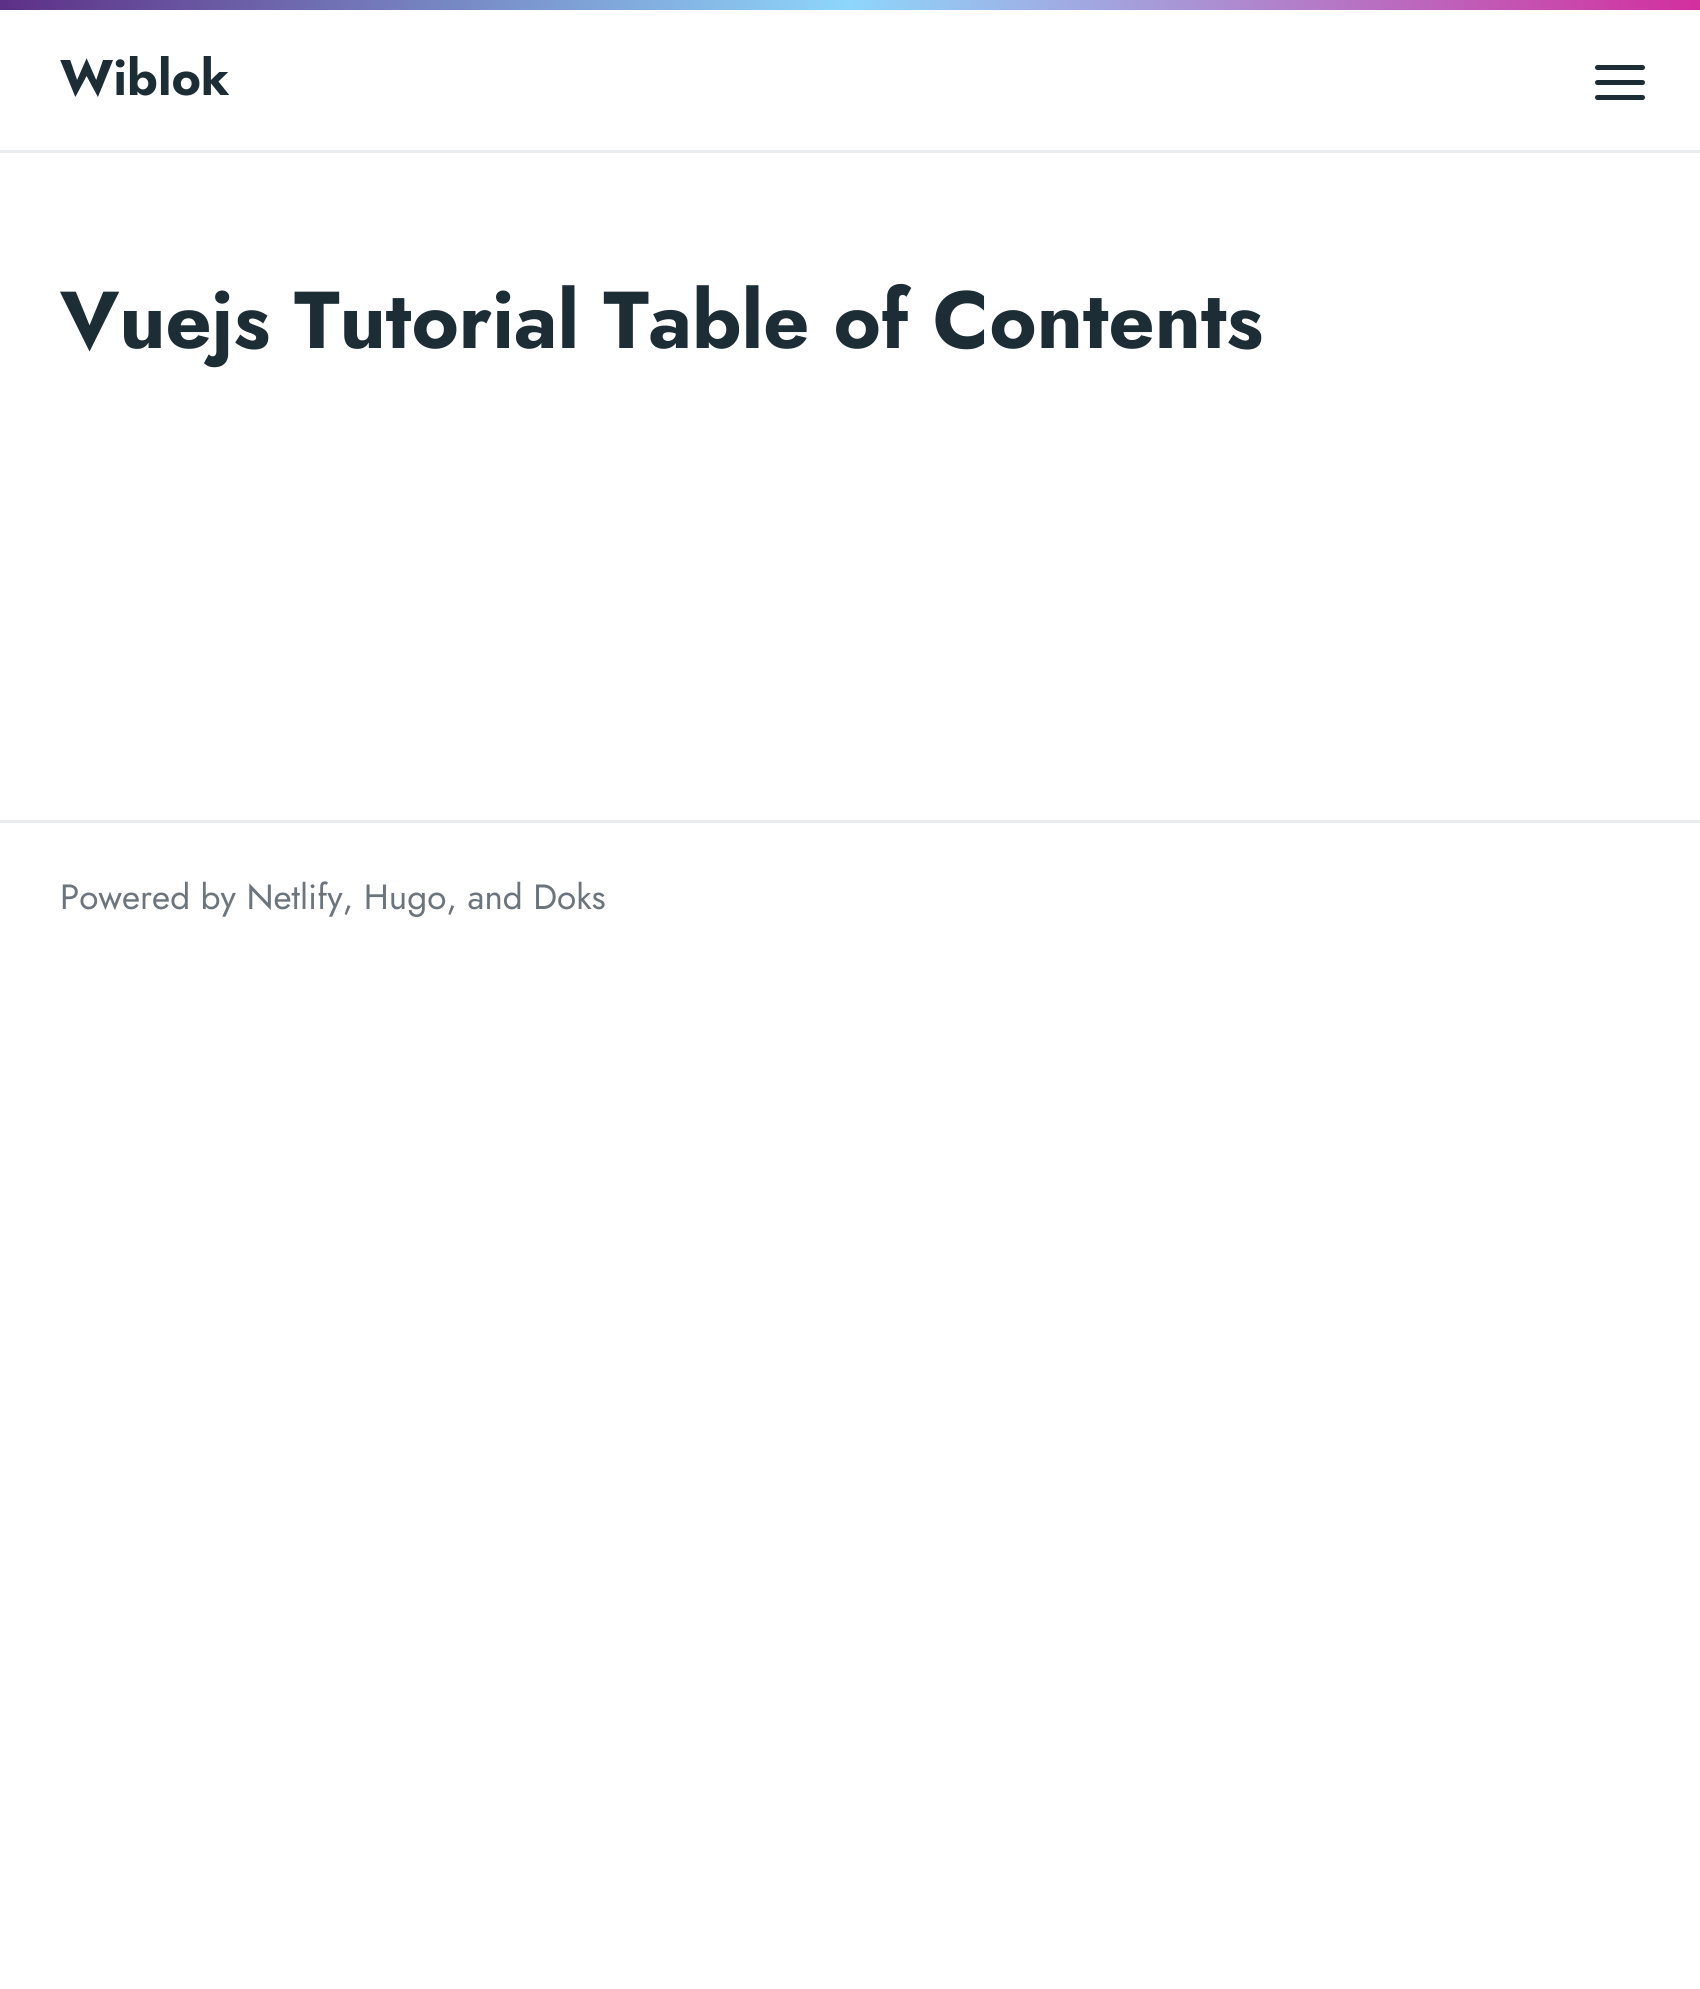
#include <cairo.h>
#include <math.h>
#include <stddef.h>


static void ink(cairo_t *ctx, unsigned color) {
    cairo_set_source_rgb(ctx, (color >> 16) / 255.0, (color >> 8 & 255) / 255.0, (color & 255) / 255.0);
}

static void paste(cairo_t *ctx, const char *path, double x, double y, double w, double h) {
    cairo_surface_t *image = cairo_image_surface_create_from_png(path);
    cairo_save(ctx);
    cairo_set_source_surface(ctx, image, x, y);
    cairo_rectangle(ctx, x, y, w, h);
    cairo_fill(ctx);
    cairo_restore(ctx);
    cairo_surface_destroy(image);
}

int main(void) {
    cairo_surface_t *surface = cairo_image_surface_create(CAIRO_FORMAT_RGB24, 1700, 1989);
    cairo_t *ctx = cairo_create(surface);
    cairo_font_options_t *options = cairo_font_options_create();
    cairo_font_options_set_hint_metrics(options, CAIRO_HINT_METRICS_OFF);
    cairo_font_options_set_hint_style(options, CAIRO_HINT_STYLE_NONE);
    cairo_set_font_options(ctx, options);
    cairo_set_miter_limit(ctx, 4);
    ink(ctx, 0xFFFFFF);
    cairo_paint(ctx);
    paste(ctx, "media/1.png", 0, 0, 1700, 10);
    ink(ctx, 0xE9ECEF);
    cairo_rectangle(ctx, 0, 150, 1700, 3);
    cairo_fill(ctx);
    cairo_select_font_face(ctx, "Jost", CAIRO_FONT_SLANT_NORMAL, CAIRO_FONT_WEIGHT_BOLD);
    cairo_set_font_size(ctx, 50);
    ink(ctx, 0x1D2D35);
    cairo_move_to(ctx, 60, 95);
    cairo_show_text(ctx, "Wiblok");
    cairo_new_path(ctx);
    cairo_move_to(ctx, 1597.5, 82.5);
    cairo_line_to(ctx, 1642.5, 82.5);
    cairo_move_to(ctx, 1597.5, 67.5);
    cairo_line_to(ctx, 1642.5, 67.5);
    cairo_move_to(ctx, 1597.5, 97.5);
    cairo_line_to(ctx, 1642.5, 97.5);
    cairo_set_line_width(ctx, 5);
    cairo_set_line_cap(ctx, CAIRO_LINE_CAP_ROUND);
    cairo_set_line_join(ctx, CAIRO_LINE_JOIN_ROUND);
    cairo_stroke(ctx);
    cairo_set_font_size(ctx, 80.5);
    cairo_move_to(ctx, 60, 348);
    cairo_show_text(ctx, "Vuejs Tutorial Table of Contents");
    ink(ctx, 0xE9ECEF);
    cairo_rectangle(ctx, 0, 820, 1700, 3);
    cairo_fill(ctx);
    cairo_select_font_face(ctx, "Jost", CAIRO_FONT_SLANT_NORMAL, CAIRO_FONT_WEIGHT_NORMAL);
    cairo_set_font_size(ctx, 35);
    ink(ctx, 0x6C757D);
    cairo_move_to(ctx, 60, 909);
    cairo_show_text(ctx, "Powered by Netlify, Hugo, and Doks");
    cairo_surface_write_to_png(surface, "image.png");
    cairo_font_options_destroy(options);
    cairo_destroy(ctx);
    cairo_surface_destroy(surface);
    return 0;
}
